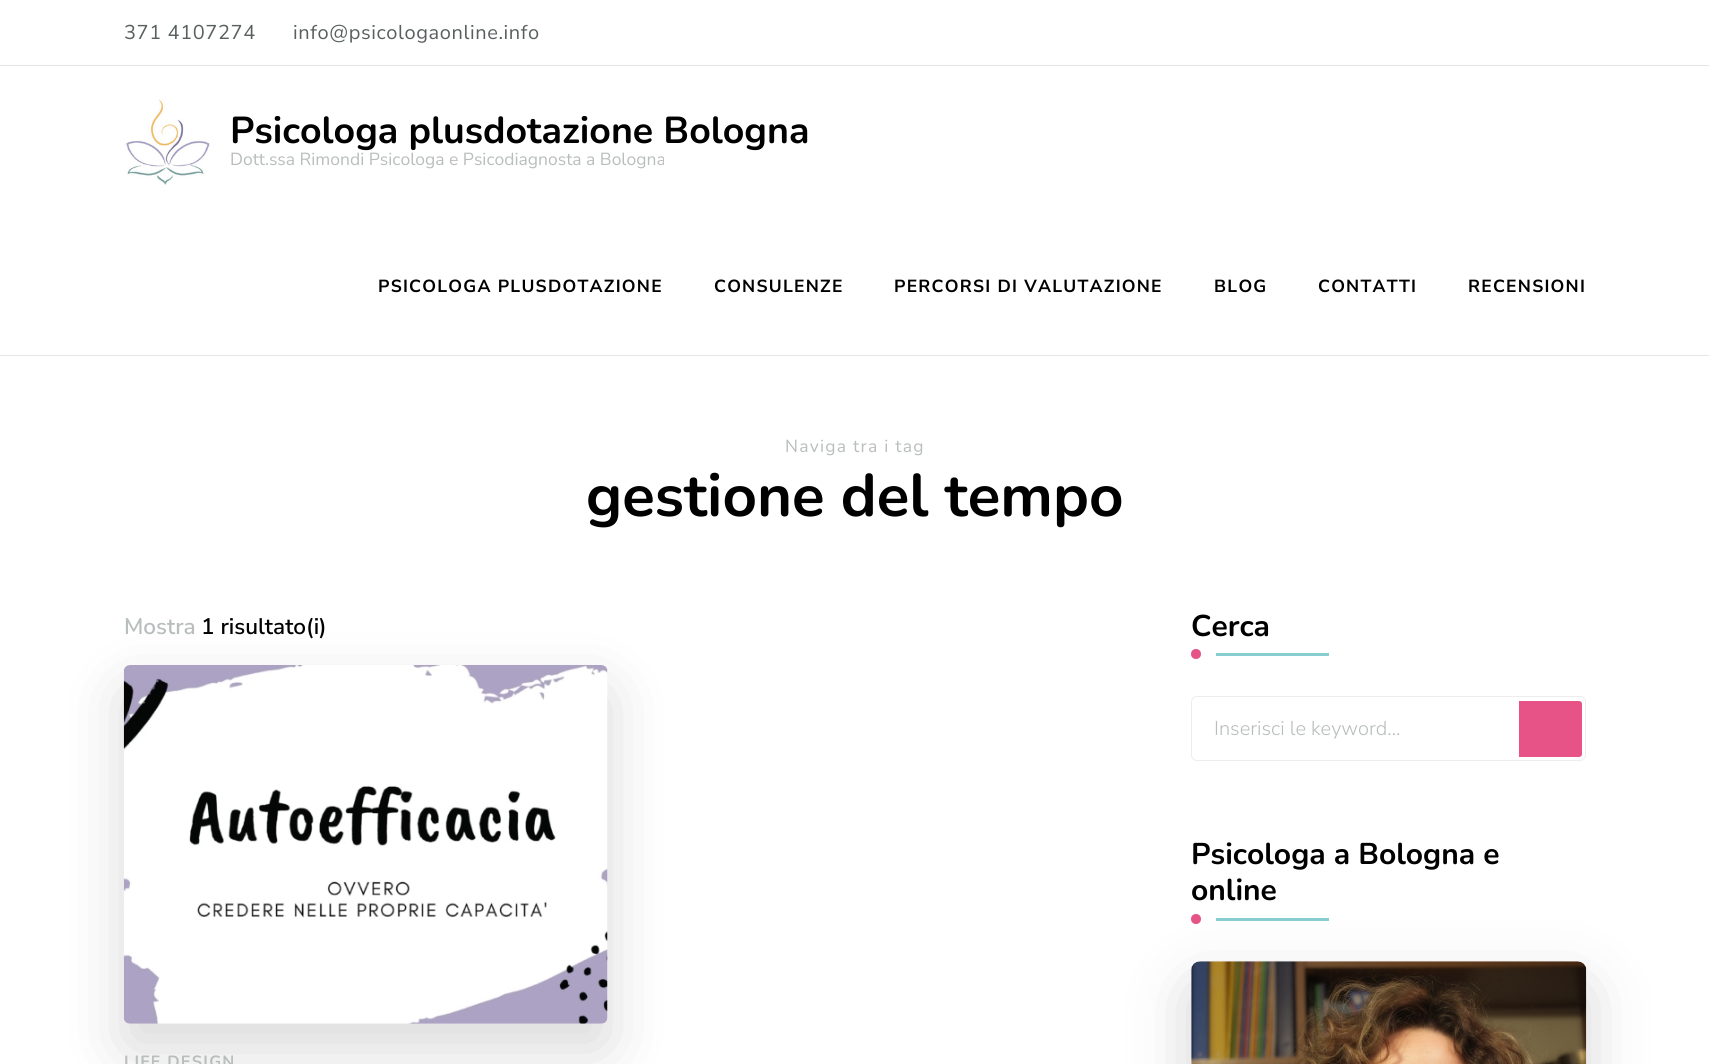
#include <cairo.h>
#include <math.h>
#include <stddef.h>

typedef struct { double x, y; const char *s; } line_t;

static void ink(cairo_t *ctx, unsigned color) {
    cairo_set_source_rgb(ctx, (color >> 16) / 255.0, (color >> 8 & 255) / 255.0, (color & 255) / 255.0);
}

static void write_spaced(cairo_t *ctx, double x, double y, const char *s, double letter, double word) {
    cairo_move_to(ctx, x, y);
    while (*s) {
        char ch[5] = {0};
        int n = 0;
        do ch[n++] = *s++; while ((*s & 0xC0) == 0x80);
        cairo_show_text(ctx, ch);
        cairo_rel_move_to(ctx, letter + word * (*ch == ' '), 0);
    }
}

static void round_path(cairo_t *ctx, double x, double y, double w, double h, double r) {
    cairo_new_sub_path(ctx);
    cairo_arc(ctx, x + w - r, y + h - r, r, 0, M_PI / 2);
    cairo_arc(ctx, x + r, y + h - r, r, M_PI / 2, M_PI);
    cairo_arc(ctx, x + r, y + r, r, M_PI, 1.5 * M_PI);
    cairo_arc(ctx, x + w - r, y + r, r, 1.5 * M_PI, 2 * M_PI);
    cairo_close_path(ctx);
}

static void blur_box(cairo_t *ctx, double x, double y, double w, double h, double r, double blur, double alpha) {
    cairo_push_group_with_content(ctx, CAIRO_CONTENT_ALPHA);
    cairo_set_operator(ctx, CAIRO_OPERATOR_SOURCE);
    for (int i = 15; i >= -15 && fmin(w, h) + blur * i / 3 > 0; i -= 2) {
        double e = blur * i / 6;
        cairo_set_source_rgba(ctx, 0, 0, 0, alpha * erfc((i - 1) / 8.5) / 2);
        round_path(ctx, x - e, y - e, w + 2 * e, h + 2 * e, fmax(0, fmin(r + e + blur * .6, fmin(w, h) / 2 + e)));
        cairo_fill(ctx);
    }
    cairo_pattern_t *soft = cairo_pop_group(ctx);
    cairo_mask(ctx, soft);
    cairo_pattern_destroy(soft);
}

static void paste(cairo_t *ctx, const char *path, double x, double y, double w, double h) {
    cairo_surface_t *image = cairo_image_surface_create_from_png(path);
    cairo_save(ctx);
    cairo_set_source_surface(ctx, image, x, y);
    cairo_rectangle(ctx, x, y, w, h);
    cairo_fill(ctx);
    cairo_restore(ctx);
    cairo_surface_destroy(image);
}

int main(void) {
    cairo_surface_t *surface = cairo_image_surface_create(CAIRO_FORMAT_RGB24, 1709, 1064);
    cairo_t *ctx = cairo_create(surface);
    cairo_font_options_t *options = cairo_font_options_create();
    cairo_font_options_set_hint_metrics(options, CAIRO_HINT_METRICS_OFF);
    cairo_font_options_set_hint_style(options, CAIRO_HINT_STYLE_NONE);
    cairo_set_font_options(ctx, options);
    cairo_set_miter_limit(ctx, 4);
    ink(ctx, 0xFFFFFF);
    cairo_paint(ctx);
    ink(ctx, 0xE5E5E5);
    cairo_rectangle(ctx, 0, 355, 1709, 1);
    cairo_fill(ctx);
    cairo_rectangle(ctx, 0, 65, 1709, 1);
    cairo_fill(ctx);
    cairo_select_font_face(ctx, "Nunito Sans", CAIRO_FONT_SLANT_NORMAL, CAIRO_FONT_WEIGHT_NORMAL);
    cairo_set_font_size(ctx, 20);
    ink(ctx, 0x595F5F);
    write_spaced(ctx, 124, 39, "371 4107274", 0.6, 0);
    write_spaced(ctx, 293, 39, "info@psicologaonline.info", 0.6, 0);
    paste(ctx, "media/1.png", 125, 99, 85, 86);
    cairo_select_font_face(ctx, "Nunito", CAIRO_FONT_SLANT_NORMAL, CAIRO_FONT_WEIGHT_BOLD);
    cairo_set_font_size(ctx, 37.5);
    ink(ctx, 0x000000);
    cairo_move_to(ctx, 230, 143);
    cairo_show_text(ctx, "Psicologa plusdotazione Bologna");
    cairo_select_font_face(ctx, "Nunito Sans", CAIRO_FONT_SLANT_NORMAL, CAIRO_FONT_WEIGHT_NORMAL);
    cairo_set_font_size(ctx, 17.5);
    ink(ctx, 0xB9BDBD);
    cairo_move_to(ctx, 230, 165);
    cairo_show_text(ctx, "Dott.ssa Rimondi Psicologa e Psicodiagnosta a Bologna");
    cairo_select_font_face(ctx, "Nunito Sans", CAIRO_FONT_SLANT_NORMAL, CAIRO_FONT_WEIGHT_BOLD);
    ink(ctx, 0x000000);
    {
        static const line_t items[] = {
            {378, 292, "PSICOLOGA PLUSDOTAZIONE"},
            {714, 292, "CONSULENZE"},
            {894, 292, "PERCORSI DI VALUTAZIONE"},
            {1214, 292, "BLOG"},
            {1318, 292, "CONTATTI"},
            {1468, 292, "RECENSIONI"},
        };
        for (size_t i = 0; i < sizeof items / sizeof *items; i++) {
            write_spaced(ctx, items[i].x, items[i].y, items[i].s, 1.25, 0);
        }
    }
    cairo_select_font_face(ctx, "Nunito", CAIRO_FONT_SLANT_NORMAL, CAIRO_FONT_WEIGHT_NORMAL);
    ink(ctx, 0xB9BDBD);
    write_spaced(ctx, 785, 452, "Naviga tra i tag", 1.25, 0);
    cairo_select_font_face(ctx, "Nunito", CAIRO_FONT_SLANT_NORMAL, CAIRO_FONT_WEIGHT_BOLD);
    cairo_set_font_size(ctx, 60);
    ink(ctx, 0x000000);
    cairo_move_to(ctx, 586, 516);
    cairo_show_text(ctx, "gestione del tempo");
    cairo_select_font_face(ctx, "Nunito Sans SemiBold", CAIRO_FONT_SLANT_NORMAL, CAIRO_FONT_WEIGHT_NORMAL);
    cairo_set_font_size(ctx, 22.5);
    ink(ctx, 0xB9BDBD);
    cairo_move_to(ctx, 124, 634);
    cairo_show_text(ctx, "Mostra");
    ink(ctx, 0x000000);
    cairo_move_to(ctx, 201, 634);
    cairo_show_text(ctx, "1 risultato(i)");
    ink(ctx, 0x000000);
    blur_box(ctx, 124, 690, 484, 359, 6, 31, 0.15);
    paste(ctx, "media/2.png", 123, 665, 485, 359);
    cairo_select_font_face(ctx, "Nunito", CAIRO_FONT_SLANT_NORMAL, CAIRO_FONT_WEIGHT_BOLD);
    cairo_set_font_size(ctx, 16.25);
    ink(ctx, 0xB9BDBD);
    write_spaced(ctx, 124, 1067, "LIFE DESIGN", 1.25, 0);
    cairo_set_font_size(ctx, 30);
    ink(ctx, 0x000000);
    cairo_move_to(ctx, 1191, 636);
    cairo_show_text(ctx, "Cerca");
    ink(ctx, 0xE75387);
    cairo_new_path(ctx);
    cairo_arc(ctx, 1196, 654, 5, 0, 2 * M_PI);
    cairo_fill(ctx);
    ink(ctx, 0x88CED0);
    cairo_rectangle(ctx, 1216, 653, 113, 3);
    cairo_fill(ctx);
    round_path(ctx, 1191.5, 696.5, 394, 64, 5.5);
    ink(ctx, 0xEDEDED);
    cairo_set_line_width(ctx, 1);
    cairo_stroke(ctx);
    cairo_select_font_face(ctx, "Nunito Sans Light", CAIRO_FONT_SLANT_NORMAL, CAIRO_FONT_WEIGHT_NORMAL);
    cairo_set_font_size(ctx, 20);
    ink(ctx, 0xB9BDBD);
    cairo_move_to(ctx, 1214, 735);
    cairo_show_text(ctx, "Inserisci le keyword…");
    ink(ctx, 0xE75387);
    cairo_new_path(ctx);
    cairo_move_to(ctx, 1517.5, 699.5);
    cairo_line_to(ctx, 1579, 699.5);
    cairo_curve_to(ctx, 1581.5, 699.5, 1583.5, 701.5, 1583.5, 704);
    cairo_line_to(ctx, 1583.5, 754);
    cairo_curve_to(ctx, 1583.5, 756.5, 1581.5, 758.5, 1579, 758.5);
    cairo_line_to(ctx, 1517.5, 758.5);
    cairo_close_path(ctx);
    cairo_fill_preserve(ctx);
    ink(ctx, 0xFFFFFF);
    cairo_set_line_width(ctx, 3);
    cairo_stroke(ctx);
    cairo_select_font_face(ctx, "Nunito", CAIRO_FONT_SLANT_NORMAL, CAIRO_FONT_WEIGHT_BOLD);
    cairo_set_font_size(ctx, 30);
    ink(ctx, 0x000000);
    cairo_move_to(ctx, 1191, 864);
    cairo_show_text(ctx, "Psicologa a Bologna e");
    ink(ctx, 0x000000);
    blur_box(ctx, 1191, 986, 395, 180, 9, 31, 0.17);
    ink(ctx, 0x000000);
    cairo_move_to(ctx, 1191, 900);
    cairo_show_text(ctx, "online");
    ink(ctx, 0xE75387);
    cairo_new_path(ctx);
    cairo_arc(ctx, 1196, 919, 5, 0, 2 * M_PI);
    cairo_fill(ctx);
    ink(ctx, 0x88CED0);
    cairo_rectangle(ctx, 1216, 918, 113, 3);
    cairo_fill(ctx);
    paste(ctx, "media/3.png", 1191, 961, 396, 103);
    cairo_surface_write_to_png(surface, "image.png");
    cairo_font_options_destroy(options);
    cairo_destroy(ctx);
    cairo_surface_destroy(surface);
    return 0;
}
